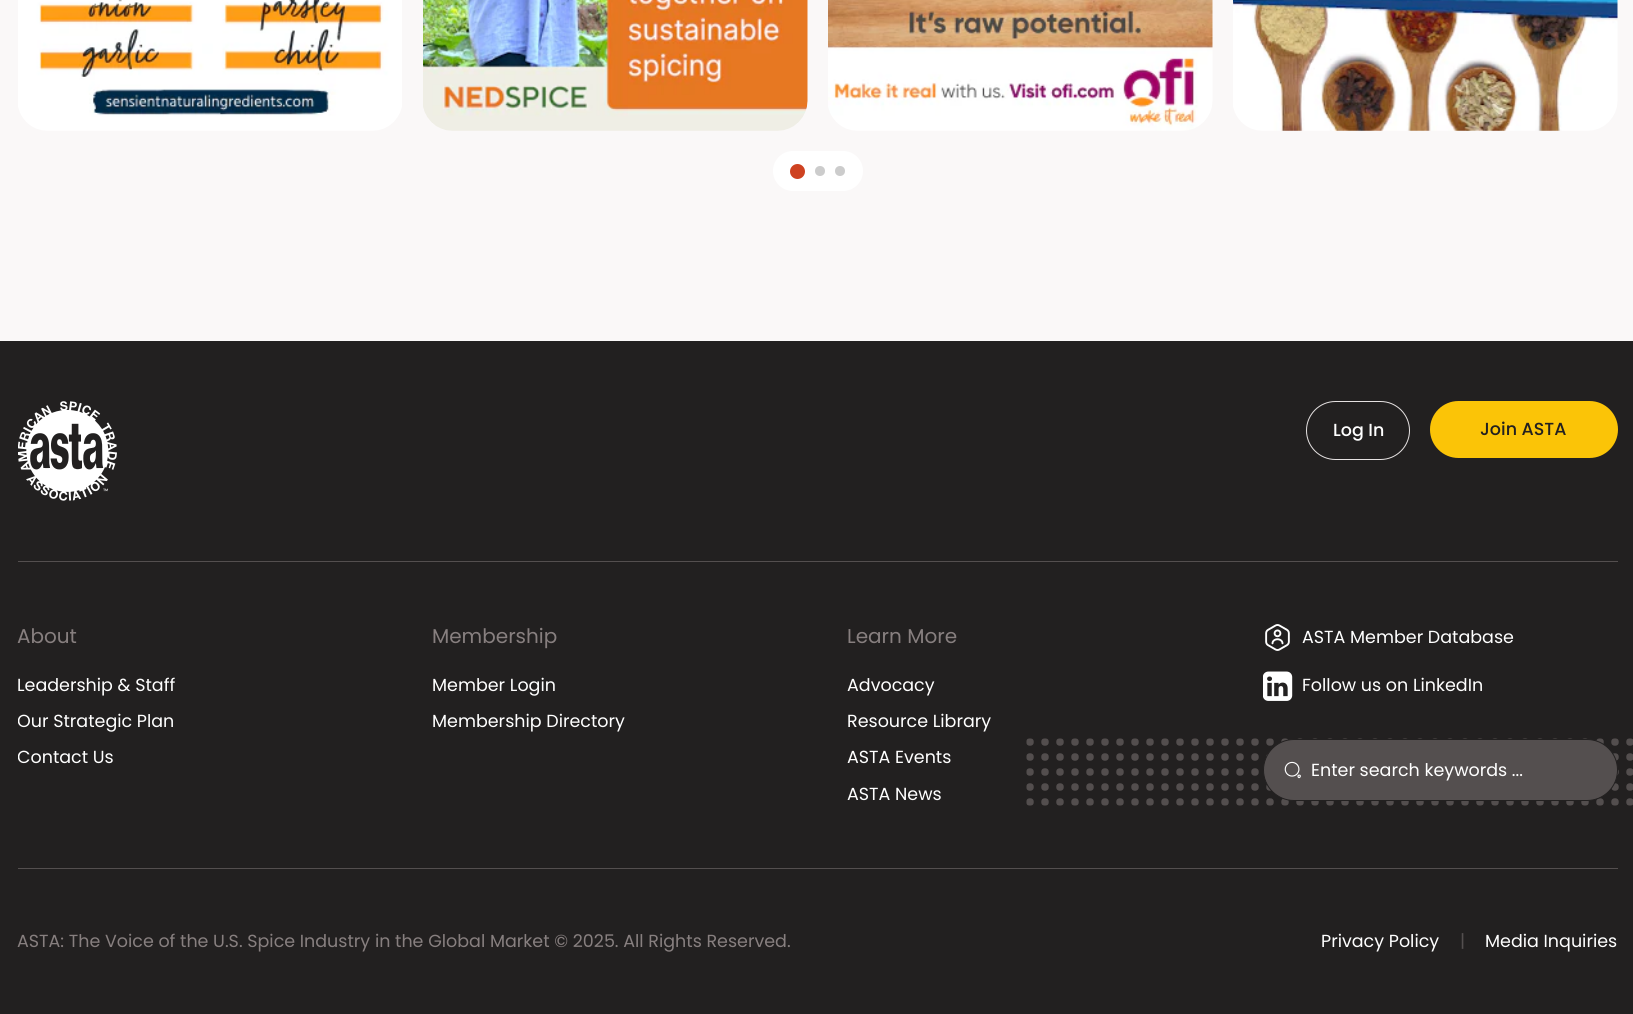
#include <cairo.h>
#include <math.h>
#include <stddef.h>

typedef struct { double x, y; const char *s; } line_t;

static void ink(cairo_t *ctx, unsigned color) {
    cairo_set_source_rgb(ctx, (color >> 16) / 255.0, (color >> 8 & 255) / 255.0, (color & 255) / 255.0);
}

static void round_path(cairo_t *ctx, double x, double y, double w, double h, double r) {
    cairo_new_sub_path(ctx);
    cairo_arc(ctx, x + w - r, y + h - r, r, 0, M_PI / 2);
    cairo_arc(ctx, x + r, y + h - r, r, M_PI / 2, M_PI);
    cairo_arc(ctx, x + r, y + r, r, M_PI, 1.5 * M_PI);
    cairo_arc(ctx, x + w - r, y + r, r, 1.5 * M_PI, 2 * M_PI);
    cairo_close_path(ctx);
}

static void paste(cairo_t *ctx, const char *path, double x, double y, double w, double h) {
    cairo_surface_t *image = cairo_image_surface_create_from_png(path);
    cairo_save(ctx);
    cairo_set_source_surface(ctx, image, x, y);
    cairo_rectangle(ctx, x, y, w, h);
    cairo_fill(ctx);
    cairo_restore(ctx);
    cairo_surface_destroy(image);
}

int main(void) {
    cairo_surface_t *surface = cairo_image_surface_create(CAIRO_FORMAT_RGB24, 1633, 1014);
    cairo_t *ctx = cairo_create(surface);
    cairo_font_options_t *options = cairo_font_options_create();
    cairo_font_options_set_hint_metrics(options, CAIRO_HINT_METRICS_OFF);
    cairo_font_options_set_hint_style(options, CAIRO_HINT_STYLE_NONE);
    cairo_set_font_options(ctx, options);
    cairo_set_miter_limit(ctx, 4);
    ink(ctx, 0xFAF8F8);
    cairo_paint(ctx);
    paste(ctx, "media/1.png", 18, 0, 384, 131);
    paste(ctx, "media/2.png", 423, 0, 385, 131);
    paste(ctx, "media/3.png", 828, 0, 385, 131);
    paste(ctx, "media/4.png", 1233, 0, 385, 131);
    ink(ctx, 0xFFFFFF);
    round_path(ctx, 773, 151, 90, 40, 20);
    cairo_fill(ctx);
    ink(ctx, 0xCE4221);
    cairo_arc(ctx, 797.5, 171.5, 7.5, 0, 2 * M_PI);
    cairo_fill(ctx);
    ink(ctx, 0xCCCCCC);
    cairo_arc(ctx, 820, 171, 5, 0, 2 * M_PI);
    cairo_fill(ctx);
    cairo_arc(ctx, 840, 171, 5, 0, 2 * M_PI);
    cairo_fill(ctx);
    ink(ctx, 0x222020);
    cairo_rectangle(ctx, 0, 341, 1633, 673);
    cairo_fill(ctx);
    paste(ctx, "media/5.png", 18, 401, 99, 100);
    round_path(ctx, 1306.5, 401.5, 103, 58, 29);
    ink(ctx, 0xE5E1E1);
    cairo_set_line_width(ctx, 1);
    cairo_stroke(ctx);
    cairo_select_font_face(ctx, "Poppins Medium", CAIRO_FONT_SLANT_NORMAL, CAIRO_FONT_WEIGHT_NORMAL);
    cairo_set_font_size(ctx, 17.5);
    ink(ctx, 0xFFFFFF);
    cairo_move_to(ctx, 1333, 436);
    cairo_show_text(ctx, "Log In");
    ink(ctx, 0xFBC407);
    round_path(ctx, 1430, 401, 188, 57, 28.5);
    cairo_fill(ctx);
    ink(ctx, 0x222020);
    cairo_move_to(ctx, 1480, 435);
    cairo_show_text(ctx, "Join ASTA");
    ink(ctx, 0x544F4F);
    cairo_rectangle(ctx, 18, 561, 1600, 1);
    cairo_fill(ctx);
    cairo_select_font_face(ctx, "Poppins", CAIRO_FONT_SLANT_NORMAL, CAIRO_FONT_WEIGHT_NORMAL);
    cairo_set_font_size(ctx, 20);
    ink(ctx, 0x877F7F);
    cairo_move_to(ctx, 17, 643);
    cairo_show_text(ctx, "About");
    cairo_set_font_size(ctx, 17.5);
    ink(ctx, 0xFFFFFF);
    cairo_move_to(ctx, 17, 691);
    cairo_show_text(ctx, "Leadership & Staff");
    cairo_save(ctx);
    cairo_rectangle(ctx, 18, 709, 355, 26);
    cairo_clip(ctx);
    cairo_move_to(ctx, 17, 727);
    cairo_show_text(ctx, "Our Strategic Plan");
    cairo_restore(ctx);
    cairo_save(ctx);
    cairo_rectangle(ctx, 18, 745, 355, 26);
    cairo_clip(ctx);
    cairo_move_to(ctx, 17, 763);
    cairo_show_text(ctx, "Contact Us");
    cairo_restore(ctx);
    cairo_set_font_size(ctx, 20);
    ink(ctx, 0x877F7F);
    cairo_move_to(ctx, 432, 643);
    cairo_show_text(ctx, "Membership");
    cairo_set_font_size(ctx, 17.5);
    ink(ctx, 0xFFFFFF);
    cairo_move_to(ctx, 432, 691);
    cairo_show_text(ctx, "Member Login");
    cairo_move_to(ctx, 432, 727);
    cairo_show_text(ctx, "Membership Directory");
    cairo_set_font_size(ctx, 20);
    ink(ctx, 0x877F7F);
    cairo_move_to(ctx, 847, 643);
    cairo_show_text(ctx, "Learn More");
    cairo_set_font_size(ctx, 17.5);
    ink(ctx, 0xFFFFFF);
    {
        static const line_t items[] = {
            {847, 691, "Advocacy"},
            {847, 727, "Resource Library"},
            {847, 763, "ASTA Events"},
            {847, 800, "ASTA News"},
        };
        for (size_t i = 0; i < sizeof items / sizeof *items; i++) {
            cairo_move_to(ctx, items[i].x, items[i].y);
            cairo_show_text(ctx, items[i].s);
        }
    }
    paste(ctx, "media/6.png", 1265, 624, 25, 27);
    cairo_move_to(ctx, 1302, 643);
    cairo_show_text(ctx, "ASTA Member Database");
    paste(ctx, "media/7.png", 1263, 671, 30, 30);
    cairo_move_to(ctx, 1302, 691);
    cairo_show_text(ctx, "Follow us on LinkedIn");
    paste(ctx, "media/9.png", 1026, 738, 607, 68);
    ink(ctx, 0x544F4F);
    round_path(ctx, 1263.5, 739.5, 354, 61, 30.5);
    cairo_fill_preserve(ctx);
    ink(ctx, 0x222020);
    cairo_stroke(ctx);
    paste(ctx, "media/8.png", 1284, 761, 17, 18);
    ink(ctx, 0xFFFFFF);
    cairo_move_to(ctx, 1311, 776);
    cairo_show_text(ctx, "Enter search keywords ...");
    ink(ctx, 0x544F4F);
    cairo_rectangle(ctx, 18, 868, 1600, 1);
    cairo_fill(ctx);
    ink(ctx, 0x877F7F);
    cairo_move_to(ctx, 17, 947);
    cairo_show_text(ctx, "ASTA: The Voice of the U.S. Spice Industry in the Global Market © 2025. All Rights Reserved.");
    ink(ctx, 0xFFFFFF);
    cairo_move_to(ctx, 1321, 947);
    cairo_show_text(ctx, "Privacy Policy");
    ink(ctx, 0x544F4F);
    cairo_move_to(ctx, 1460, 947);
    cairo_show_text(ctx, "|");
    ink(ctx, 0xFFFFFF);
    cairo_move_to(ctx, 1485, 947);
    cairo_show_text(ctx, "Media Inquiries");
    cairo_surface_write_to_png(surface, "image.png");
    cairo_font_options_destroy(options);
    cairo_destroy(ctx);
    cairo_surface_destroy(surface);
    return 0;
}
